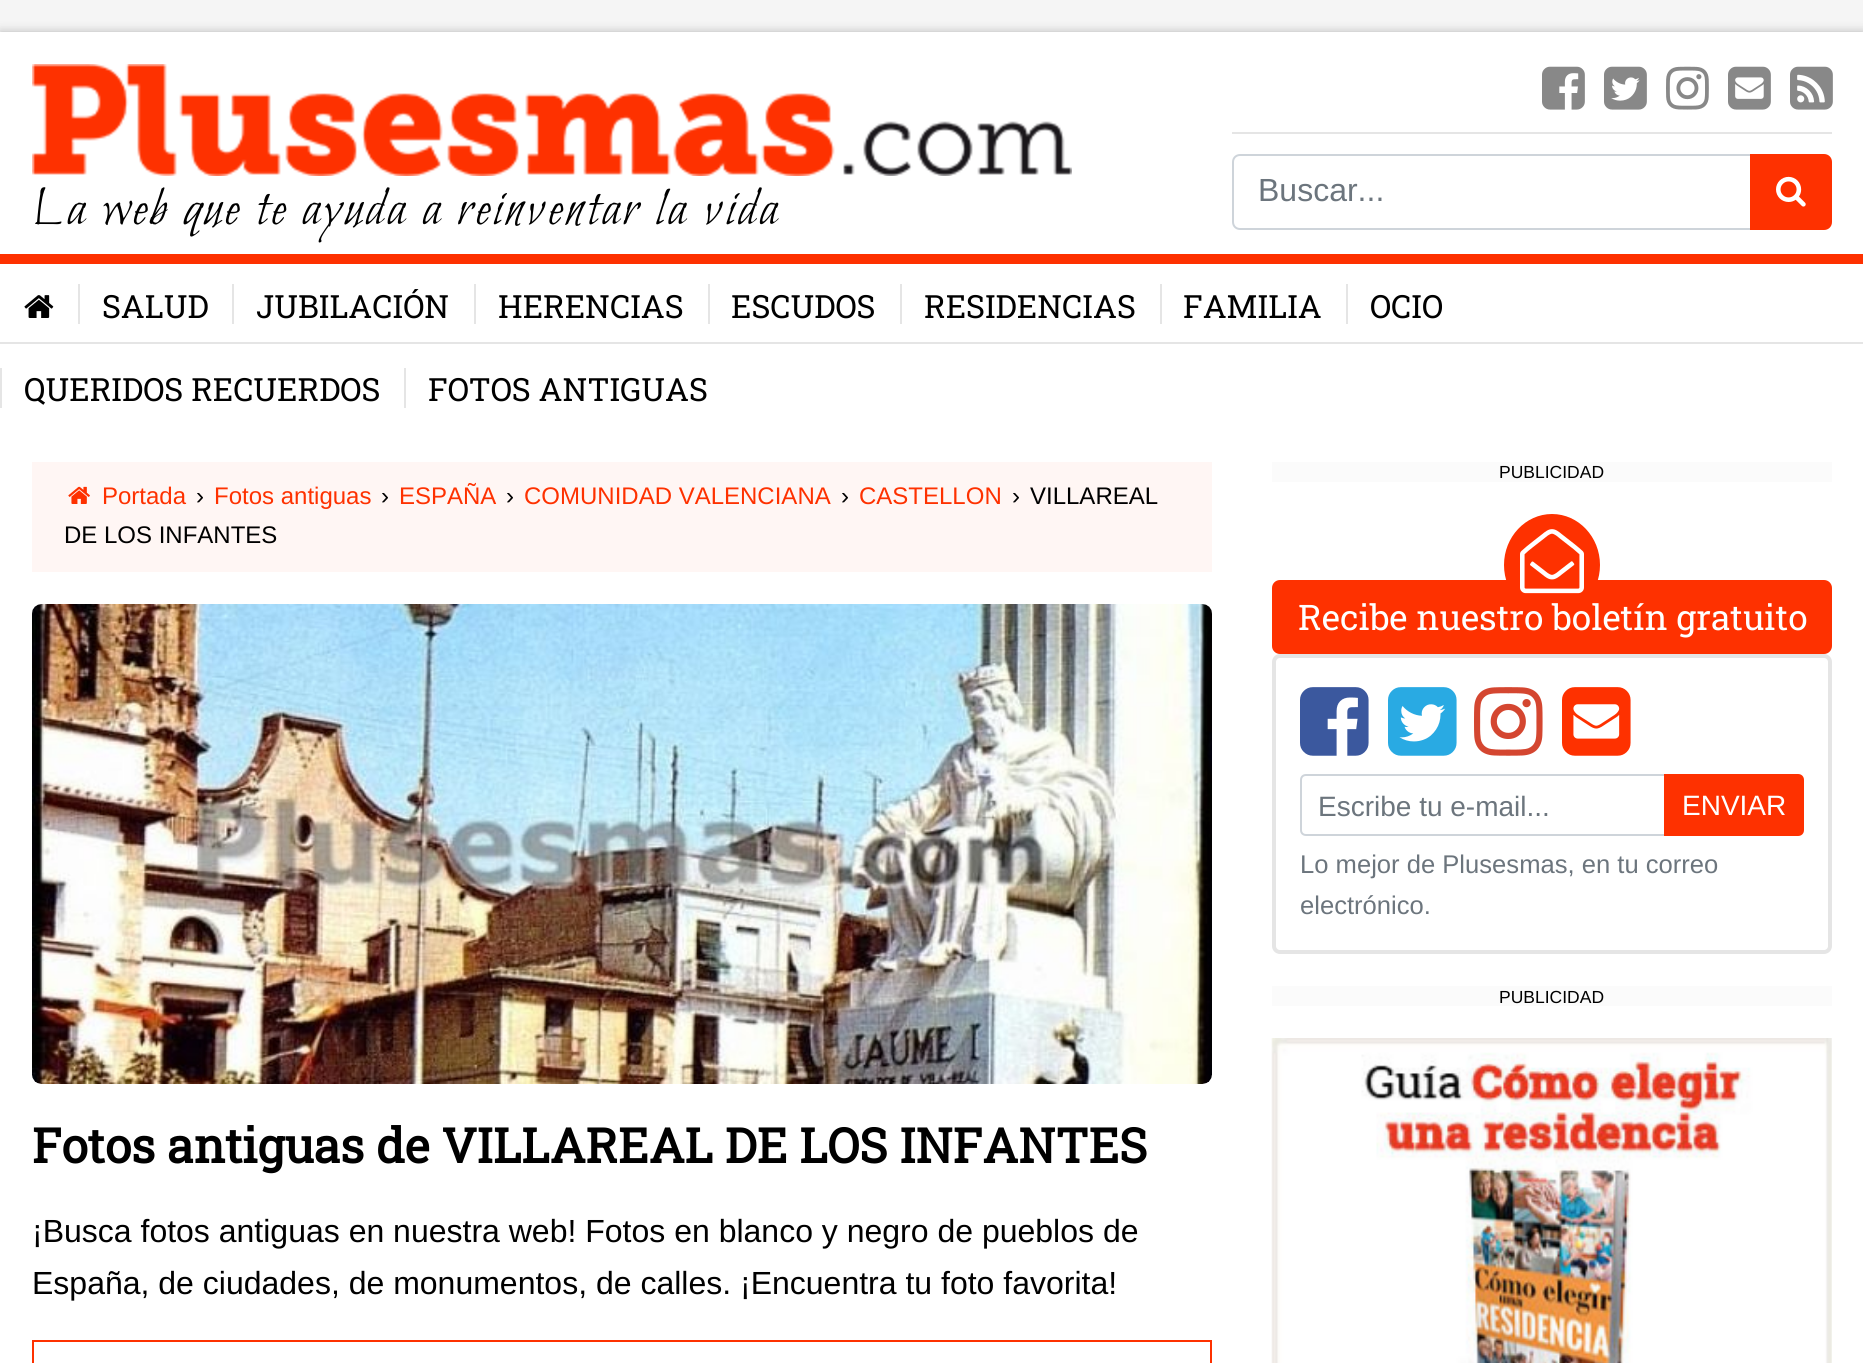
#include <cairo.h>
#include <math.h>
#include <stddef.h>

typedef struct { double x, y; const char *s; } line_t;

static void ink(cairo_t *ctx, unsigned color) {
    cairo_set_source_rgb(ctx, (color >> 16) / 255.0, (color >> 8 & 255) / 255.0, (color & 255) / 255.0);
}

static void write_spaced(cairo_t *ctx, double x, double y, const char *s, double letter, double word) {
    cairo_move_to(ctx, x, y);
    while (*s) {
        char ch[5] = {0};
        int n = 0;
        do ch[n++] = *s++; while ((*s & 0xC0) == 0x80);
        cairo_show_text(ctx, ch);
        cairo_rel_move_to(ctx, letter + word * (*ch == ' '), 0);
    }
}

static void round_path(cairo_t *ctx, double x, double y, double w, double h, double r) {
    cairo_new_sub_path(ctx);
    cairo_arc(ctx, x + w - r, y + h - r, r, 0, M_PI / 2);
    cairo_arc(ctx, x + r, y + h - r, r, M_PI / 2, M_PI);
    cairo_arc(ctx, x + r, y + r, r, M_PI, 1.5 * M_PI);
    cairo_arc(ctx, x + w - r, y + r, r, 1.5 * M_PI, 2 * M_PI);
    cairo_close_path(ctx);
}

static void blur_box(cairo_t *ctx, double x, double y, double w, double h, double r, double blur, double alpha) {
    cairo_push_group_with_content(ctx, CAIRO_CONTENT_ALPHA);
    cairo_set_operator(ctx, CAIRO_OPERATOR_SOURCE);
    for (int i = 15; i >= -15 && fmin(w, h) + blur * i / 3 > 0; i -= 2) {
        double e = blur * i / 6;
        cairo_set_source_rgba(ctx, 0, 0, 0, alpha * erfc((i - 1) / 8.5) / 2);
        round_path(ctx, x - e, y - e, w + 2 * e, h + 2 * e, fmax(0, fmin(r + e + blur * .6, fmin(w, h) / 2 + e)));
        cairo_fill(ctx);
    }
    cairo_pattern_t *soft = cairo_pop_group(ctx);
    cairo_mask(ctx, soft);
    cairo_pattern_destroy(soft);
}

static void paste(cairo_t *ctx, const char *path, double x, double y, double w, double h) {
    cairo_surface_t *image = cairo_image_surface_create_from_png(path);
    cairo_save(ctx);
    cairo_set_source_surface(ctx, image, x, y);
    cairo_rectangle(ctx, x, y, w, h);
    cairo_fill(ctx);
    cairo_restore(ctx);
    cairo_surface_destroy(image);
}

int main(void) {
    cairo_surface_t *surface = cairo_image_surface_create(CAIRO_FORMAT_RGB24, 1863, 1363);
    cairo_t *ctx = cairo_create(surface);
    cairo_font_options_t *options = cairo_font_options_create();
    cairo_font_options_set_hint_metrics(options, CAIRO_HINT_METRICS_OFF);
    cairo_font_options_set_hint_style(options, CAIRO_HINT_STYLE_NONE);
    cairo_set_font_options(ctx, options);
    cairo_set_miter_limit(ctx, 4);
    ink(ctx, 0xF5F5F5);
    cairo_paint(ctx);
    ink(ctx, 0x000000);
    blur_box(ctx, 0, 32, 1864, 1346, 0, 5, 0.25);
    ink(ctx, 0xFFFFFF);
    cairo_rectangle(ctx, 0, 32, 1863, 1331);
    cairo_fill(ctx);
    ink(ctx, 0xFE3100);
    cairo_rectangle(ctx, 0, 254, 1863, 10);
    cairo_fill(ctx);
    paste(ctx, "media/1.png", 32, 64, 1040, 112);
    cairo_select_font_face(ctx, "Bilbo", CAIRO_FONT_SLANT_NORMAL, CAIRO_FONT_WEIGHT_NORMAL);
    cairo_set_font_size(ctx, 56);
    ink(ctx, 0x000000);
    write_spaced(ctx, 32, 224, "La web que te ayuda a reinventar la vida", 2.8, 0);
    paste(ctx, "media/2.png", 1542, 66, 43, 44);
    paste(ctx, "media/3.png", 1604, 66, 43, 44);
    paste(ctx, "media/4.png", 1666, 66, 43, 44);
    paste(ctx, "media/5.png", 1728, 66, 43, 44);
    paste(ctx, "media/6.png", 1790, 66, 43, 44);
    ink(ctx, 0xE5E5E5);
    cairo_rectangle(ctx, 1232, 132, 600, 2);
    cairo_fill(ctx);
    cairo_new_path(ctx);
    cairo_move_to(ctx, 1240, 155);
    cairo_line_to(ctx, 1751, 155);
    cairo_line_to(ctx, 1751, 229);
    cairo_line_to(ctx, 1240, 229);
    cairo_curve_to(ctx, 1236, 229, 1233, 226, 1233, 222);
    cairo_line_to(ctx, 1233, 162);
    cairo_curve_to(ctx, 1233, 158, 1236, 155, 1240, 155);
    cairo_close_path(ctx);
    ink(ctx, 0xCED4DA);
    cairo_stroke(ctx);
    cairo_select_font_face(ctx, "Liberation Sans", CAIRO_FONT_SLANT_NORMAL, CAIRO_FONT_WEIGHT_NORMAL);
    cairo_set_font_size(ctx, 32);
    ink(ctx, 0x6C757D);
    cairo_move_to(ctx, 1258, 201);
    cairo_show_text(ctx, "Buscar...");
    ink(ctx, 0xFE3100);
    cairo_new_path(ctx);
    cairo_move_to(ctx, 1751, 155);
    cairo_line_to(ctx, 1824, 155);
    cairo_curve_to(ctx, 1828, 155, 1831, 158, 1831, 162);
    cairo_line_to(ctx, 1831, 222);
    cairo_curve_to(ctx, 1831, 226, 1828, 229, 1824, 229);
    cairo_line_to(ctx, 1751, 229);
    cairo_close_path(ctx);
    cairo_fill_preserve(ctx);
    cairo_stroke(ctx);
    paste(ctx, "media/7.png", 1776, 176, 30, 31);
    ink(ctx, 0xE5E5E5);
    cairo_rectangle(ctx, 0, 342, 1863, 2);
    cairo_fill(ctx);
    paste(ctx, "media/8.png", 24, 295, 30, 23);
    cairo_rectangle(ctx, 78, 284, 2, 40);
    cairo_fill(ctx);
    cairo_select_font_face(ctx, "Roboto Slab", CAIRO_FONT_SLANT_NORMAL, CAIRO_FONT_WEIGHT_NORMAL);
    ink(ctx, 0x000000);
    cairo_move_to(ctx, 102, 318);
    cairo_show_text(ctx, "SALUD");
    ink(ctx, 0xE5E5E5);
    cairo_rectangle(ctx, 232, 284, 2, 40);
    cairo_fill(ctx);
    ink(ctx, 0x000000);
    cairo_move_to(ctx, 256, 318);
    cairo_show_text(ctx, "JUBILACIÓN");
    ink(ctx, 0xE5E5E5);
    cairo_rectangle(ctx, 474, 284, 2, 40);
    cairo_fill(ctx);
    ink(ctx, 0x000000);
    cairo_move_to(ctx, 498, 318);
    cairo_show_text(ctx, "HERENCIAS");
    ink(ctx, 0xE5E5E5);
    cairo_rectangle(ctx, 708, 284, 2, 40);
    cairo_fill(ctx);
    ink(ctx, 0x000000);
    cairo_move_to(ctx, 731, 318);
    cairo_show_text(ctx, "ESCUDOS");
    ink(ctx, 0xE5E5E5);
    cairo_rectangle(ctx, 900, 284, 2, 40);
    cairo_fill(ctx);
    ink(ctx, 0x000000);
    cairo_move_to(ctx, 924, 318);
    cairo_show_text(ctx, "RESIDENCIAS");
    ink(ctx, 0xE5E5E5);
    cairo_rectangle(ctx, 1160, 284, 2, 40);
    cairo_fill(ctx);
    ink(ctx, 0x000000);
    cairo_move_to(ctx, 1183, 318);
    cairo_show_text(ctx, "FAMILIA");
    ink(ctx, 0xE5E5E5);
    cairo_rectangle(ctx, 1346, 284, 2, 40);
    cairo_fill(ctx);
    ink(ctx, 0x000000);
    cairo_move_to(ctx, 1370, 318);
    cairo_show_text(ctx, "OCIO");
    ink(ctx, 0xE5E5E5);
    cairo_rectangle(ctx, 0, 368, 2, 40);
    cairo_fill(ctx);
    ink(ctx, 0x000000);
    cairo_move_to(ctx, 24, 401);
    cairo_show_text(ctx, "QUERIDOS RECUERDOS");
    ink(ctx, 0xE5E5E5);
    cairo_rectangle(ctx, 404, 368, 2, 40);
    cairo_fill(ctx);
    ink(ctx, 0x000000);
    cairo_move_to(ctx, 428, 401);
    cairo_show_text(ctx, "FOTOS ANTIGUAS");
    ink(ctx, 0xFFF6F4);
    cairo_rectangle(ctx, 32, 462, 1180, 110);
    cairo_fill(ctx);
    paste(ctx, "media/9.png", 68, 486, 22, 18);
    cairo_select_font_face(ctx, "Liberation Sans", CAIRO_FONT_SLANT_NORMAL, CAIRO_FONT_WEIGHT_NORMAL);
    cairo_set_font_size(ctx, 24);
    ink(ctx, 0xFE3100);
    cairo_move_to(ctx, 102, 504);
    cairo_show_text(ctx, "Portada");
    ink(ctx, 0x000000);
    cairo_move_to(ctx, 196, 504);
    cairo_show_text(ctx, "›");
    ink(ctx, 0xFE3100);
    cairo_move_to(ctx, 214, 504);
    cairo_show_text(ctx, "Fotos antiguas");
    ink(ctx, 0x000000);
    cairo_move_to(ctx, 381, 504);
    cairo_show_text(ctx, "›");
    ink(ctx, 0xFE3100);
    cairo_move_to(ctx, 399, 504);
    cairo_show_text(ctx, "ESPAÑA");
    ink(ctx, 0x000000);
    cairo_move_to(ctx, 506, 504);
    cairo_show_text(ctx, "›");
    ink(ctx, 0xFE3100);
    cairo_move_to(ctx, 524, 504);
    cairo_show_text(ctx, "COMUNIDAD VALENCIANA");
    ink(ctx, 0x000000);
    cairo_move_to(ctx, 841, 504);
    cairo_show_text(ctx, "›");
    ink(ctx, 0xFE3100);
    cairo_move_to(ctx, 859, 504);
    cairo_show_text(ctx, "CASTELLON");
    ink(ctx, 0x000000);
    {
        static const line_t items[] = {
            {1012, 504, "›"},
            {1030, 504, "VILLAREAL"},
            {64, 543, "DE LOS INFANTES"},
        };
        for (size_t i = 0; i < sizeof items / sizeof *items; i++) {
            cairo_move_to(ctx, items[i].x, items[i].y);
            cairo_show_text(ctx, items[i].s);
        }
    }
    paste(ctx, "media/10.png", 32, 604, 1180, 480);
    cairo_select_font_face(ctx, "Roboto Slab", CAIRO_FONT_SLANT_NORMAL, CAIRO_FONT_WEIGHT_BOLD);
    cairo_set_font_size(ctx, 48);
    cairo_move_to(ctx, 32, 1163);
    cairo_show_text(ctx, "Fotos antiguas de VILLAREAL DE LOS INFANTES");
    cairo_select_font_face(ctx, "Liberation Sans", CAIRO_FONT_SLANT_NORMAL, CAIRO_FONT_WEIGHT_NORMAL);
    cairo_set_font_size(ctx, 32);
    cairo_move_to(ctx, 32, 1242);
    cairo_show_text(ctx, "¡Busca fotos antiguas en nuestra web! Fotos en blanco y negro de pueblos de");
    cairo_move_to(ctx, 32, 1294);
    cairo_show_text(ctx, "España, de ciudades, de monumentos, de calles. ¡Encuentra tu foto favorita!");
    cairo_rectangle(ctx, 33, 1341, 1178, 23);
    ink(ctx, 0xFE3100);
    cairo_stroke(ctx);
    ink(ctx, 0xFBFBFB);
    cairo_rectangle(ctx, 1272, 462, 560, 20);
    cairo_fill(ctx);
    cairo_set_font_size(ctx, 17.5);
    ink(ctx, 0x000000);
    cairo_move_to(ctx, 1499, 478);
    cairo_show_text(ctx, "PUBLICIDAD");
    ink(ctx, 0xFE3100);
    round_path(ctx, 1272, 580, 560, 74, 8);
    cairo_fill(ctx);
    cairo_new_path(ctx);
    cairo_move_to(ctx, 1552, 514);
    cairo_curve_to(ctx, 1578.5, 514, 1600, 537, 1600, 565);
    cairo_curve_to(ctx, 1600, 593, 1578.5, 616, 1552, 616);
    cairo_curve_to(ctx, 1525.5, 616, 1504, 593, 1504, 565);
    cairo_curve_to(ctx, 1504, 537, 1525.5, 514, 1552, 514);
    cairo_close_path(ctx);
    cairo_fill(ctx);
    paste(ctx, "media/11.png", 1520, 529, 64, 65);
    cairo_select_font_face(ctx, "Roboto Slab", CAIRO_FONT_SLANT_NORMAL, CAIRO_FONT_WEIGHT_NORMAL);
    cairo_set_font_size(ctx, 35.25);
    ink(ctx, 0xFFFFFF);
    cairo_move_to(ctx, 1298, 630);
    cairo_show_text(ctx, "Recibe nuestro boletín gratuito");
    round_path(ctx, 1274, 656, 556, 296, 6);
    ink(ctx, 0xE5E5E5);
    cairo_set_line_width(ctx, 4);
    cairo_stroke(ctx);
    paste(ctx, "media/12.png", 1300, 687, 69, 69);
    paste(ctx, "media/13.png", 1388, 687, 69, 69);
    paste(ctx, "media/14.png", 1474, 687, 69, 69);
    paste(ctx, "media/15.png", 1562, 687, 69, 69);
    cairo_new_path(ctx);
    cairo_move_to(ctx, 1306, 775);
    cairo_line_to(ctx, 1665, 775);
    cairo_line_to(ctx, 1665, 835);
    cairo_line_to(ctx, 1306, 835);
    cairo_curve_to(ctx, 1303, 835, 1301, 833, 1301, 830);
    cairo_line_to(ctx, 1301, 780);
    cairo_curve_to(ctx, 1301, 777, 1303, 775, 1306, 775);
    cairo_close_path(ctx);
    ink(ctx, 0xCED4DA);
    cairo_set_line_width(ctx, 2);
    cairo_stroke(ctx);
    cairo_select_font_face(ctx, "Liberation Sans", CAIRO_FONT_SLANT_NORMAL, CAIRO_FONT_WEIGHT_NORMAL);
    cairo_set_font_size(ctx, 28);
    ink(ctx, 0x6C757D);
    cairo_move_to(ctx, 1318, 816);
    cairo_show_text(ctx, "Escribe tu e-mail...");
    ink(ctx, 0xFE3100);
    cairo_new_path(ctx);
    cairo_move_to(ctx, 1665, 775);
    cairo_line_to(ctx, 1798, 775);
    cairo_curve_to(ctx, 1801, 775, 1803, 777, 1803, 780);
    cairo_line_to(ctx, 1803, 830);
    cairo_curve_to(ctx, 1803, 833, 1801, 835, 1798, 835);
    cairo_line_to(ctx, 1665, 835);
    cairo_close_path(ctx);
    cairo_fill_preserve(ctx);
    cairo_stroke(ctx);
    ink(ctx, 0xFFFFFF);
    cairo_move_to(ctx, 1682, 815);
    cairo_show_text(ctx, "ENVIAR");
    cairo_set_font_size(ctx, 25.6);
    ink(ctx, 0x6C757D);
    cairo_move_to(ctx, 1300, 873);
    cairo_show_text(ctx, "Lo mejor de Plusesmas, en tu correo");
    cairo_move_to(ctx, 1300, 914);
    cairo_show_text(ctx, "electrónico.");
    ink(ctx, 0xFBFBFB);
    cairo_rectangle(ctx, 1272, 986, 560, 20);
    cairo_fill(ctx);
    cairo_set_font_size(ctx, 17.5);
    ink(ctx, 0x000000);
    cairo_move_to(ctx, 1499, 1003);
    cairo_show_text(ctx, "PUBLICIDAD");
    paste(ctx, "media/16.png", 1271, 1038, 561, 325);
    cairo_surface_write_to_png(surface, "image.png");
    cairo_font_options_destroy(options);
    cairo_destroy(ctx);
    cairo_surface_destroy(surface);
    return 0;
}
